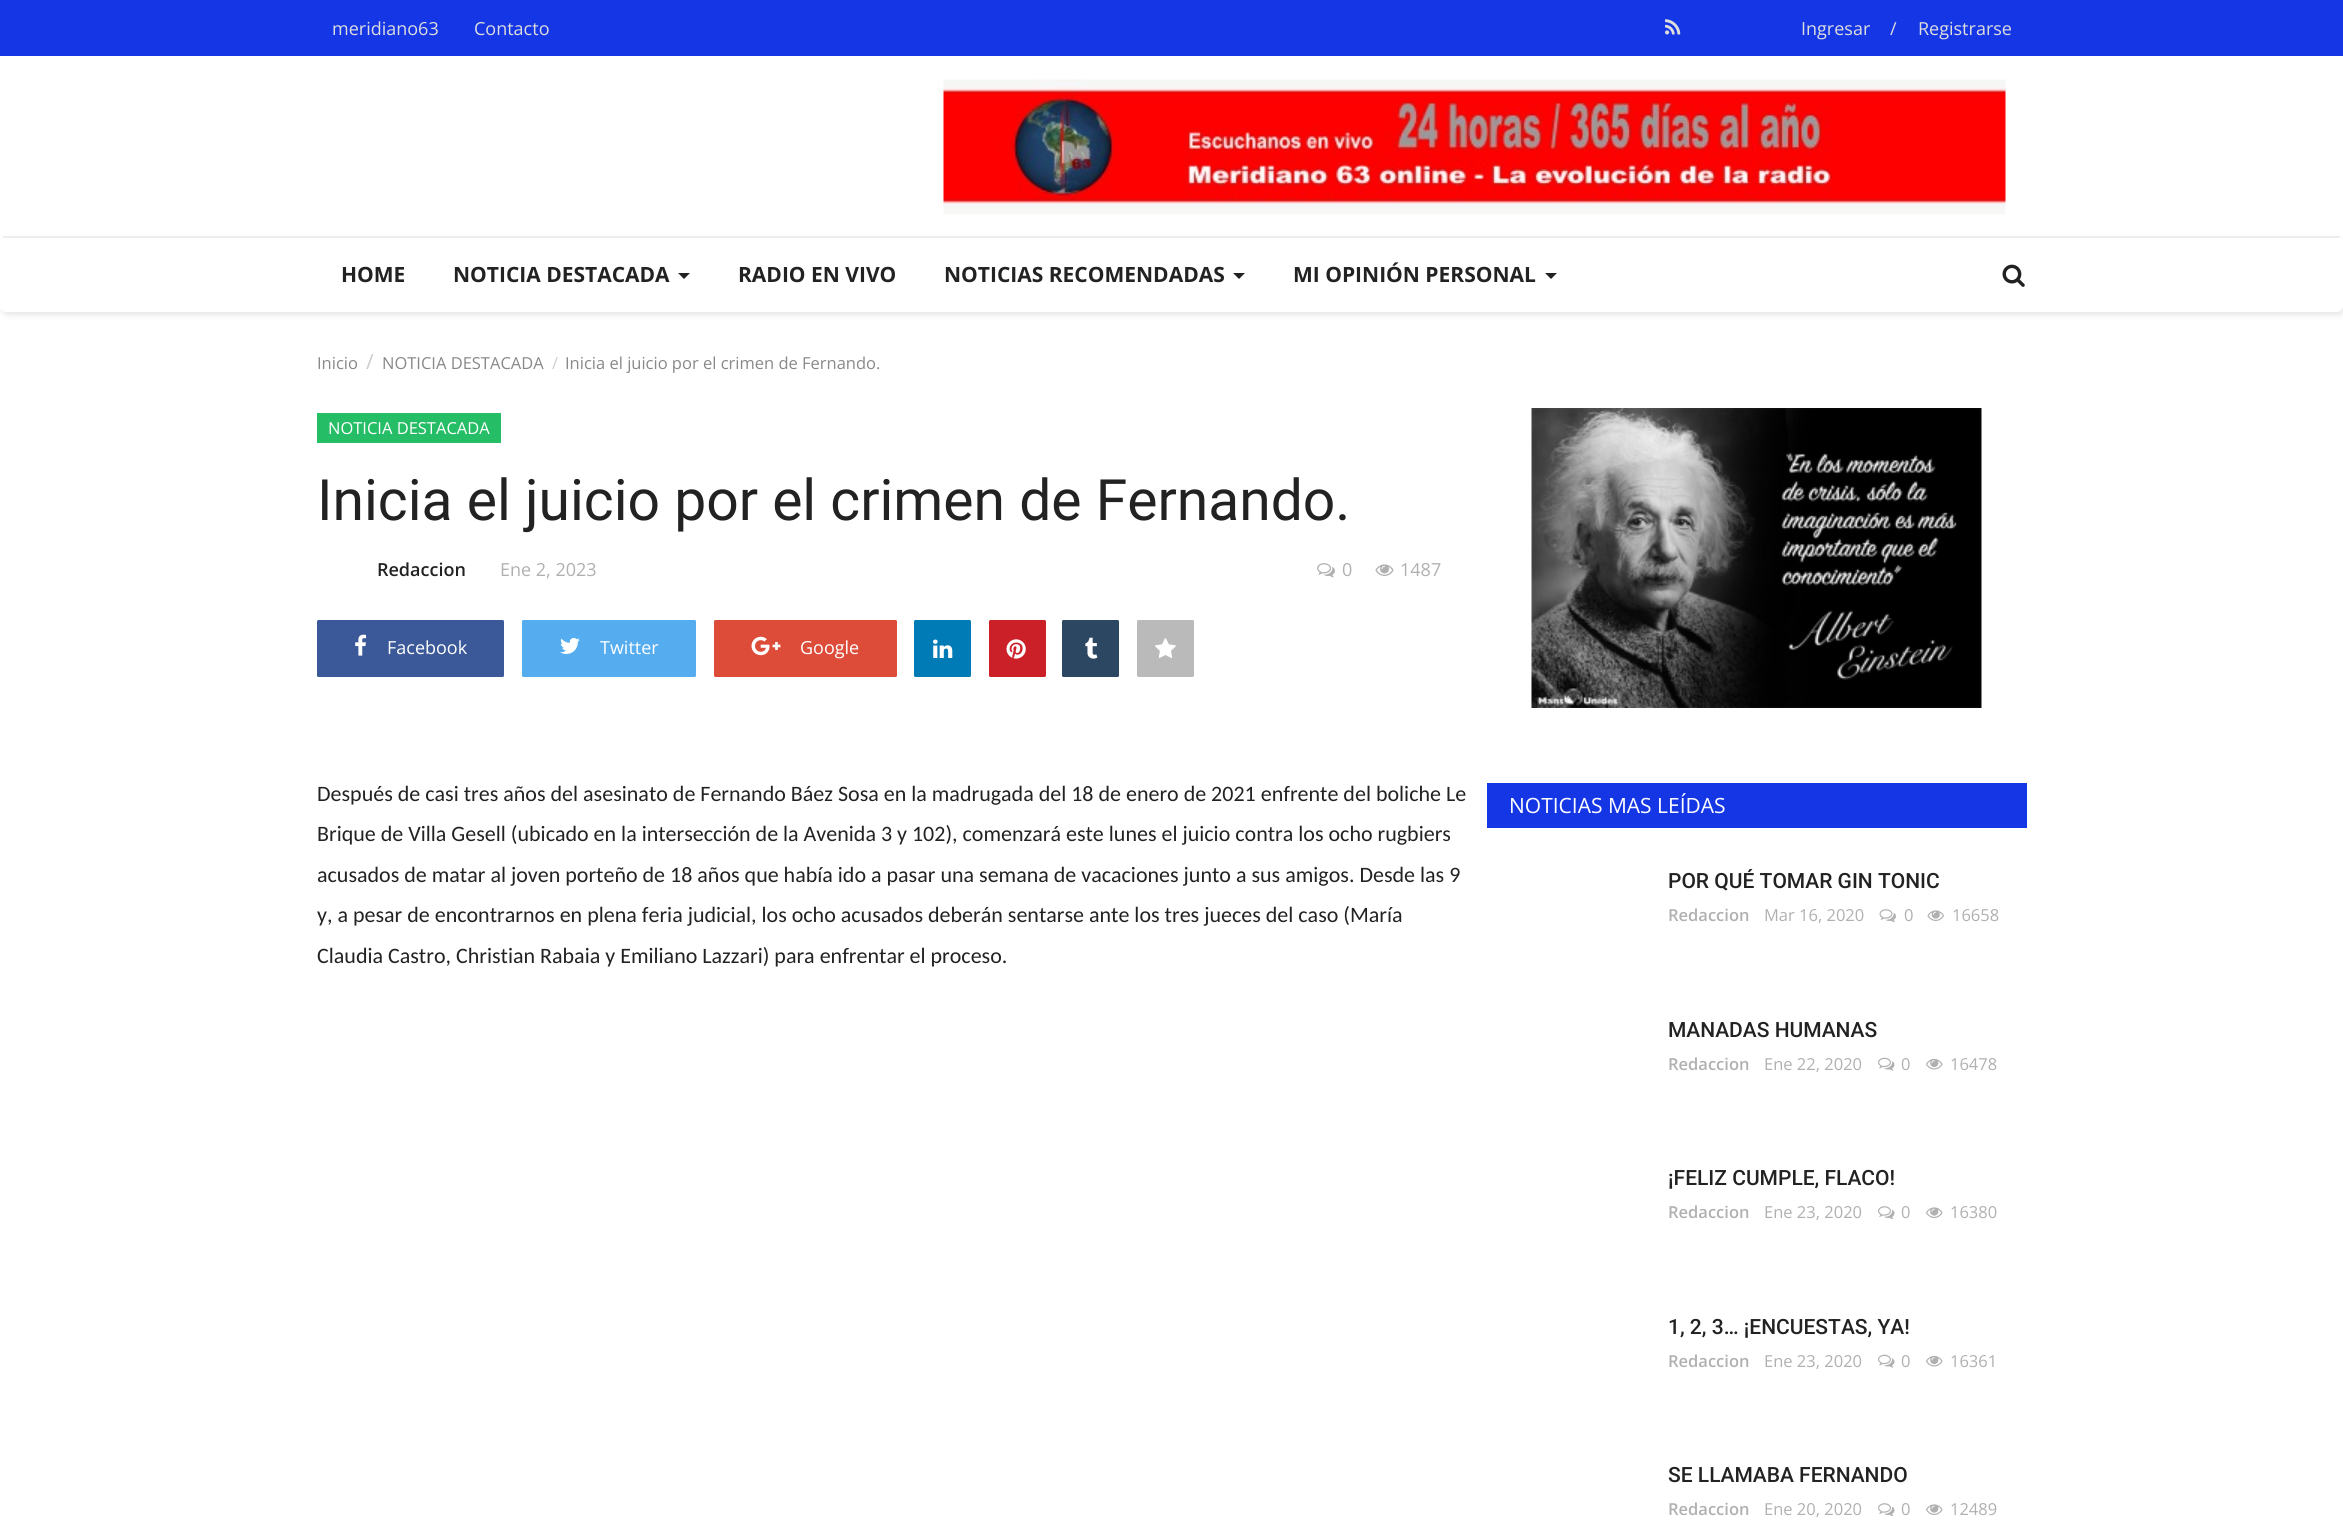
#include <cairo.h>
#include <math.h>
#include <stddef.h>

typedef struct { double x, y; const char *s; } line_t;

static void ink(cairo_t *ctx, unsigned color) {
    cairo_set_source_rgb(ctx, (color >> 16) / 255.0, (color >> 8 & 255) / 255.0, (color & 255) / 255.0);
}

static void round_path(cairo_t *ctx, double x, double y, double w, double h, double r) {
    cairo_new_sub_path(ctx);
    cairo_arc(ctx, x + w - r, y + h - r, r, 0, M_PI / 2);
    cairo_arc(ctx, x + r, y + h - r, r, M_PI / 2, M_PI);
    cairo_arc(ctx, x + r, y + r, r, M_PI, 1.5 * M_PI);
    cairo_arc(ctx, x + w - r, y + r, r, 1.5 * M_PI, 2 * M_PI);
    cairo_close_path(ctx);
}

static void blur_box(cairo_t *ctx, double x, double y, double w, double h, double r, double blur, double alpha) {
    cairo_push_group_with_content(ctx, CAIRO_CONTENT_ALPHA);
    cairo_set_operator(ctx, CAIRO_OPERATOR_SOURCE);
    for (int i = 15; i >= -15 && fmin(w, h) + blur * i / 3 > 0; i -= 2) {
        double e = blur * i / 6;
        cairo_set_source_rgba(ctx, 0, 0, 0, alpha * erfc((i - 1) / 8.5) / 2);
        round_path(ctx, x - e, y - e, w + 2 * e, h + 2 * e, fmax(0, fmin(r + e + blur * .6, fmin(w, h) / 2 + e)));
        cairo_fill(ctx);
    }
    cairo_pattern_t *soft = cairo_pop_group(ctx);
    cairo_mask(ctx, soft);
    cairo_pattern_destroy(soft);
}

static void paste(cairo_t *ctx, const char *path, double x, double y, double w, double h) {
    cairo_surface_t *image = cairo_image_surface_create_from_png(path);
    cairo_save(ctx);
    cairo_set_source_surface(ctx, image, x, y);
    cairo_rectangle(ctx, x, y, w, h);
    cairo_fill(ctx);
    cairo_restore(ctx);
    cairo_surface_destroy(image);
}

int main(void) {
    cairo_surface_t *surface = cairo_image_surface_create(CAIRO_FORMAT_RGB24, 2343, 1522);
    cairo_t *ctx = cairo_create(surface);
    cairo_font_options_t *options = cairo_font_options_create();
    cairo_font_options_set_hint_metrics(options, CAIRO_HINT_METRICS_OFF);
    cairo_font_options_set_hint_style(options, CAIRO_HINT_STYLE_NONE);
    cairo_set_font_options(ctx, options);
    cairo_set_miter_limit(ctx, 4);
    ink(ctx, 0xFFFFFF);
    cairo_paint(ctx);
    ink(ctx, 0x1436E5);
    cairo_rectangle(ctx, 0, 0, 2343, 56);
    cairo_fill(ctx);
    cairo_select_font_face(ctx, "Open Sans", CAIRO_FONT_SLANT_NORMAL, CAIRO_FONT_WEIGHT_NORMAL);
    cairo_set_font_size(ctx, 18);
    ink(ctx, 0xDDDDDD);
    cairo_move_to(ctx, 332, 35);
    cairo_show_text(ctx, "meridiano63");
    cairo_move_to(ctx, 474, 35);
    cairo_show_text(ctx, "Contacto");
    paste(ctx, "media/1.png", 1665, 19, 16, 16);
    {
        static const line_t items[] = {
            {1801, 35, "Ingresar"},
            {1890, 35, "/"},
            {1918, 35, "Registrarse"},
        };
        for (size_t i = 0; i < sizeof items / sizeof *items; i++) {
            cairo_move_to(ctx, items[i].x, items[i].y);
            cairo_show_text(ctx, items[i].s);
        }
    }
    paste(ctx, "media/2.png", 943, 79, 1063, 136);
    ink(ctx, 0x000000);
    blur_box(ctx, 2, 239, 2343, 76, 6, 3, 0.1);
    ink(ctx, 0xFFFFFF);
    round_path(ctx, 0, 236, 2343, 76, 6);
    cairo_fill(ctx);
    ink(ctx, 0xEEEEEE);
    cairo_rectangle(ctx, 3, 236, 2337, 2);
    cairo_fill(ctx);
    cairo_select_font_face(ctx, "Open Sans", CAIRO_FONT_SLANT_NORMAL, CAIRO_FONT_WEIGHT_BOLD);
    cairo_set_font_size(ctx, 21);
    ink(ctx, 0x222222);
    cairo_move_to(ctx, 341, 282);
    cairo_show_text(ctx, "HOME");
    cairo_move_to(ctx, 453, 282);
    cairo_show_text(ctx, "NOTICIA DESTACADA");
    cairo_new_path(ctx);
    cairo_move_to(ctx, 678, 273);
    cairo_line_to(ctx, 690, 273);
    cairo_line_to(ctx, 684, 279);
    cairo_close_path(ctx);
    cairo_fill(ctx);
    cairo_move_to(ctx, 738, 282);
    cairo_show_text(ctx, "RADIO EN VIVO");
    cairo_move_to(ctx, 944, 282);
    cairo_show_text(ctx, "NOTICIAS RECOMENDADAS");
    cairo_new_path(ctx);
    cairo_move_to(ctx, 1233, 273);
    cairo_line_to(ctx, 1245, 273);
    cairo_line_to(ctx, 1239, 279);
    cairo_close_path(ctx);
    cairo_fill(ctx);
    cairo_move_to(ctx, 1293, 282);
    cairo_show_text(ctx, "MI OPINIÓN PERSONAL");
    cairo_new_path(ctx);
    cairo_move_to(ctx, 1545, 273);
    cairo_line_to(ctx, 1557, 273);
    cairo_line_to(ctx, 1551, 279);
    cairo_close_path(ctx);
    cairo_fill(ctx);
    paste(ctx, "media/3.png", 2002, 264, 23, 23);
    cairo_select_font_face(ctx, "Open Sans", CAIRO_FONT_SLANT_NORMAL, CAIRO_FONT_WEIGHT_NORMAL);
    cairo_set_font_size(ctx, 16.5);
    ink(ctx, 0x888888);
    cairo_move_to(ctx, 317, 369);
    cairo_show_text(ctx, "Inicio");
    cairo_set_font_size(ctx, 21);
    ink(ctx, 0xCCCCCC);
    cairo_move_to(ctx, 366, 369);
    cairo_show_text(ctx, "/");
    cairo_set_font_size(ctx, 16.5);
    ink(ctx, 0x888888);
    cairo_move_to(ctx, 382, 369);
    cairo_show_text(ctx, "NOTICIA DESTACADA");
    ink(ctx, 0xCCCCCC);
    cairo_move_to(ctx, 552, 369);
    cairo_show_text(ctx, "/");
    ink(ctx, 0x888888);
    cairo_move_to(ctx, 565, 369);
    cairo_show_text(ctx, "Inicia el juicio por el crimen de Fernando.");
    ink(ctx, 0x25BD65);
    cairo_rectangle(ctx, 317, 413, 184, 30);
    cairo_fill(ctx);
    ink(ctx, 0xFFFFFF);
    cairo_move_to(ctx, 328, 434);
    cairo_show_text(ctx, "NOTICIA DESTACADA");
    cairo_select_font_face(ctx, "Roboto", CAIRO_FONT_SLANT_NORMAL, CAIRO_FONT_WEIGHT_NORMAL);
    cairo_set_font_size(ctx, 57);
    ink(ctx, 0x222222);
    cairo_move_to(ctx, 317, 520);
    cairo_show_text(ctx, "Inicia el juicio por el crimen de Fernando.");
    cairo_select_font_face(ctx, "Open Sans SemiBold", CAIRO_FONT_SLANT_NORMAL, CAIRO_FONT_WEIGHT_NORMAL);
    cairo_set_font_size(ctx, 18);
    cairo_move_to(ctx, 377, 576);
    cairo_show_text(ctx, "Redaccion");
    cairo_select_font_face(ctx, "Open Sans", CAIRO_FONT_SLANT_NORMAL, CAIRO_FONT_WEIGHT_NORMAL);
    ink(ctx, 0xB0B0B0);
    cairo_move_to(ctx, 500, 576);
    cairo_show_text(ctx, "Ene 2, 2023");
    paste(ctx, "media/4.png", 1317, 563, 18, 15);
    cairo_move_to(ctx, 1342, 576);
    cairo_show_text(ctx, "0");
    paste(ctx, "media/5.png", 1375, 564, 19, 12);
    cairo_move_to(ctx, 1400, 576);
    cairo_show_text(ctx, "1487");
    ink(ctx, 0x3B5998);
    round_path(ctx, 317, 620, 187, 57, 1.5);
    cairo_fill(ctx);
    paste(ctx, "media/6.png", 355, 634, 12, 22);
    ink(ctx, 0xFFFFFF);
    cairo_move_to(ctx, 387, 654);
    cairo_show_text(ctx, "Facebook");
    ink(ctx, 0x55ACEE);
    round_path(ctx, 522, 620, 174, 57, 1.5);
    cairo_fill(ctx);
    paste(ctx, "media/7.png", 560, 637, 20, 17);
    ink(ctx, 0xFFFFFF);
    cairo_move_to(ctx, 600, 654);
    cairo_show_text(ctx, "Twitter");
    ink(ctx, 0xDD4B39);
    round_path(ctx, 714, 620, 183, 57, 1.5);
    cairo_fill(ctx);
    paste(ctx, "media/8.png", 751, 636, 30, 20);
    ink(ctx, 0xFFFFFF);
    cairo_move_to(ctx, 800, 654);
    cairo_show_text(ctx, "Google");
    ink(ctx, 0x007BB5);
    round_path(ctx, 914, 620, 57, 57, 1.5);
    cairo_fill(ctx);
    paste(ctx, "media/9.png", 933, 639, 20, 19);
    ink(ctx, 0xCB2027);
    round_path(ctx, 989, 620, 57, 57, 1.5);
    cairo_fill(ctx);
    paste(ctx, "media/10.png", 1006, 639, 20, 20);
    ink(ctx, 0x2C4762);
    round_path(ctx, 1062, 620, 57, 57, 1.5);
    cairo_fill(ctx);
    paste(ctx, "media/11.png", 1085, 637, 13, 22);
    ink(ctx, 0xBABABA);
    round_path(ctx, 1137, 620, 57, 57, 1.5);
    cairo_fill(ctx);
    paste(ctx, "media/12.png", 1155, 638, 21, 20);
    cairo_select_font_face(ctx, "Carlito", CAIRO_FONT_SLANT_NORMAL, CAIRO_FONT_WEIGHT_NORMAL);
    cairo_set_font_size(ctx, 22);
    ink(ctx, 0x222222);
    {
        static const line_t items[] = {
            {317, 801, "Después de casi tres años del asesinato de Fernando Báez Sosa en la madrugada del 18 de enero de 2021 enfrente del boliche Le"},
            {317, 841, "Brique de Villa Gesell (ubicado en la intersección de la Avenida 3 y 102), comenzará este lunes el juicio contra los ocho rugbiers"},
            {317, 882, "acusados de matar al joven porteño de 18 años que había ido a pasar una semana de vacaciones junto a sus amigos. Desde las 9"},
            {317, 922, "y, a pesar de encontrarnos en plena feria judicial, los ocho acusados deberán sentarse ante los tres jueces del caso (María"},
            {317, 963, "Claudia Castro, Christian Rabaia y Emiliano Lazzari) para enfrentar el proceso."},
        };
        for (size_t i = 0; i < sizeof items / sizeof *items; i++) {
            cairo_move_to(ctx, items[i].x, items[i].y);
            cairo_show_text(ctx, items[i].s);
        }
    }
    paste(ctx, "media/13.png", 1531, 408, 451, 300);
    ink(ctx, 0x1436E5);
    cairo_rectangle(ctx, 1487, 783, 540, 45);
    cairo_fill(ctx);
    cairo_select_font_face(ctx, "Open Sans", CAIRO_FONT_SLANT_NORMAL, CAIRO_FONT_WEIGHT_NORMAL);
    cairo_set_font_size(ctx, 21);
    ink(ctx, 0xFFFFFF);
    cairo_move_to(ctx, 1509, 813);
    cairo_show_text(ctx, "NOTICIAS MAS LEÍDAS");
    cairo_select_font_face(ctx, "Roboto Medium", CAIRO_FONT_SLANT_NORMAL, CAIRO_FONT_WEIGHT_NORMAL);
    ink(ctx, 0x222222);
    cairo_move_to(ctx, 1668, 888);
    cairo_show_text(ctx, "POR QUÉ TOMAR GIN TONIC");
    cairo_select_font_face(ctx, "Open Sans SemiBold", CAIRO_FONT_SLANT_NORMAL, CAIRO_FONT_WEIGHT_NORMAL);
    cairo_set_font_size(ctx, 16.5);
    ink(ctx, 0xB0B0B0);
    cairo_move_to(ctx, 1668, 921);
    cairo_show_text(ctx, "Redaccion");
    cairo_select_font_face(ctx, "Open Sans", CAIRO_FONT_SLANT_NORMAL, CAIRO_FONT_WEIGHT_NORMAL);
    cairo_move_to(ctx, 1764, 921);
    cairo_show_text(ctx, "Mar 16, 2020");
    paste(ctx, "media/14.png", 1879, 909, 17, 14);
    cairo_move_to(ctx, 1904, 921);
    cairo_show_text(ctx, "0");
    paste(ctx, "media/15.png", 1927, 910, 17, 11);
    cairo_move_to(ctx, 1952, 921);
    cairo_show_text(ctx, "16658");
    cairo_select_font_face(ctx, "Roboto Medium", CAIRO_FONT_SLANT_NORMAL, CAIRO_FONT_WEIGHT_NORMAL);
    cairo_set_font_size(ctx, 21);
    ink(ctx, 0x222222);
    cairo_move_to(ctx, 1668, 1037);
    cairo_show_text(ctx, "MANADAS HUMANAS");
    cairo_select_font_face(ctx, "Open Sans SemiBold", CAIRO_FONT_SLANT_NORMAL, CAIRO_FONT_WEIGHT_NORMAL);
    cairo_set_font_size(ctx, 16.5);
    ink(ctx, 0xB0B0B0);
    cairo_move_to(ctx, 1668, 1070);
    cairo_show_text(ctx, "Redaccion");
    cairo_select_font_face(ctx, "Open Sans", CAIRO_FONT_SLANT_NORMAL, CAIRO_FONT_WEIGHT_NORMAL);
    cairo_move_to(ctx, 1764, 1070);
    cairo_show_text(ctx, "Ene 22, 2020");
    paste(ctx, "media/16.png", 1878, 1057, 17, 14);
    cairo_move_to(ctx, 1901, 1070);
    cairo_show_text(ctx, "0");
    paste(ctx, "media/17.png", 1926, 1058, 17, 12);
    cairo_move_to(ctx, 1950, 1070);
    cairo_show_text(ctx, "16478");
    cairo_select_font_face(ctx, "Roboto Medium", CAIRO_FONT_SLANT_NORMAL, CAIRO_FONT_WEIGHT_NORMAL);
    cairo_set_font_size(ctx, 21);
    ink(ctx, 0x222222);
    cairo_move_to(ctx, 1668, 1185);
    cairo_show_text(ctx, "¡FELIZ CUMPLE, FLACO!");
    cairo_select_font_face(ctx, "Open Sans SemiBold", CAIRO_FONT_SLANT_NORMAL, CAIRO_FONT_WEIGHT_NORMAL);
    cairo_set_font_size(ctx, 16.5);
    ink(ctx, 0xB0B0B0);
    cairo_move_to(ctx, 1668, 1218);
    cairo_show_text(ctx, "Redaccion");
    cairo_select_font_face(ctx, "Open Sans", CAIRO_FONT_SLANT_NORMAL, CAIRO_FONT_WEIGHT_NORMAL);
    cairo_move_to(ctx, 1764, 1218);
    cairo_show_text(ctx, "Ene 23, 2020");
    paste(ctx, "media/18.png", 1878, 1206, 17, 14);
    cairo_move_to(ctx, 1901, 1218);
    cairo_show_text(ctx, "0");
    paste(ctx, "media/19.png", 1926, 1207, 17, 11);
    cairo_move_to(ctx, 1950, 1218);
    cairo_show_text(ctx, "16380");
    cairo_select_font_face(ctx, "Roboto Medium", CAIRO_FONT_SLANT_NORMAL, CAIRO_FONT_WEIGHT_NORMAL);
    cairo_set_font_size(ctx, 21);
    ink(ctx, 0x222222);
    cairo_move_to(ctx, 1668, 1334);
    cairo_show_text(ctx, "1, 2, 3… ¡ENCUESTAS, YA!");
    cairo_select_font_face(ctx, "Open Sans SemiBold", CAIRO_FONT_SLANT_NORMAL, CAIRO_FONT_WEIGHT_NORMAL);
    cairo_set_font_size(ctx, 16.5);
    ink(ctx, 0xB0B0B0);
    cairo_move_to(ctx, 1668, 1367);
    cairo_show_text(ctx, "Redaccion");
    cairo_select_font_face(ctx, "Open Sans", CAIRO_FONT_SLANT_NORMAL, CAIRO_FONT_WEIGHT_NORMAL);
    cairo_move_to(ctx, 1764, 1367);
    cairo_show_text(ctx, "Ene 23, 2020");
    paste(ctx, "media/16.png", 1878, 1354, 17, 14);
    cairo_move_to(ctx, 1901, 1367);
    cairo_show_text(ctx, "0");
    paste(ctx, "media/17.png", 1926, 1355, 17, 12);
    cairo_move_to(ctx, 1950, 1367);
    cairo_show_text(ctx, "16361");
    cairo_select_font_face(ctx, "Roboto Medium", CAIRO_FONT_SLANT_NORMAL, CAIRO_FONT_WEIGHT_NORMAL);
    cairo_set_font_size(ctx, 21);
    ink(ctx, 0x222222);
    cairo_move_to(ctx, 1668, 1482);
    cairo_show_text(ctx, "SE LLAMABA FERNANDO");
    cairo_select_font_face(ctx, "Open Sans SemiBold", CAIRO_FONT_SLANT_NORMAL, CAIRO_FONT_WEIGHT_NORMAL);
    cairo_set_font_size(ctx, 16.5);
    ink(ctx, 0xB0B0B0);
    cairo_move_to(ctx, 1668, 1515);
    cairo_show_text(ctx, "Redaccion");
    cairo_select_font_face(ctx, "Open Sans", CAIRO_FONT_SLANT_NORMAL, CAIRO_FONT_WEIGHT_NORMAL);
    cairo_move_to(ctx, 1764, 1515);
    cairo_show_text(ctx, "Ene 20, 2020");
    paste(ctx, "media/18.png", 1878, 1503, 17, 14);
    cairo_move_to(ctx, 1901, 1515);
    cairo_show_text(ctx, "0");
    paste(ctx, "media/19.png", 1926, 1504, 17, 11);
    cairo_move_to(ctx, 1950, 1515);
    cairo_show_text(ctx, "12489");
    cairo_surface_write_to_png(surface, "image.png");
    cairo_font_options_destroy(options);
    cairo_destroy(ctx);
    cairo_surface_destroy(surface);
    return 0;
}
